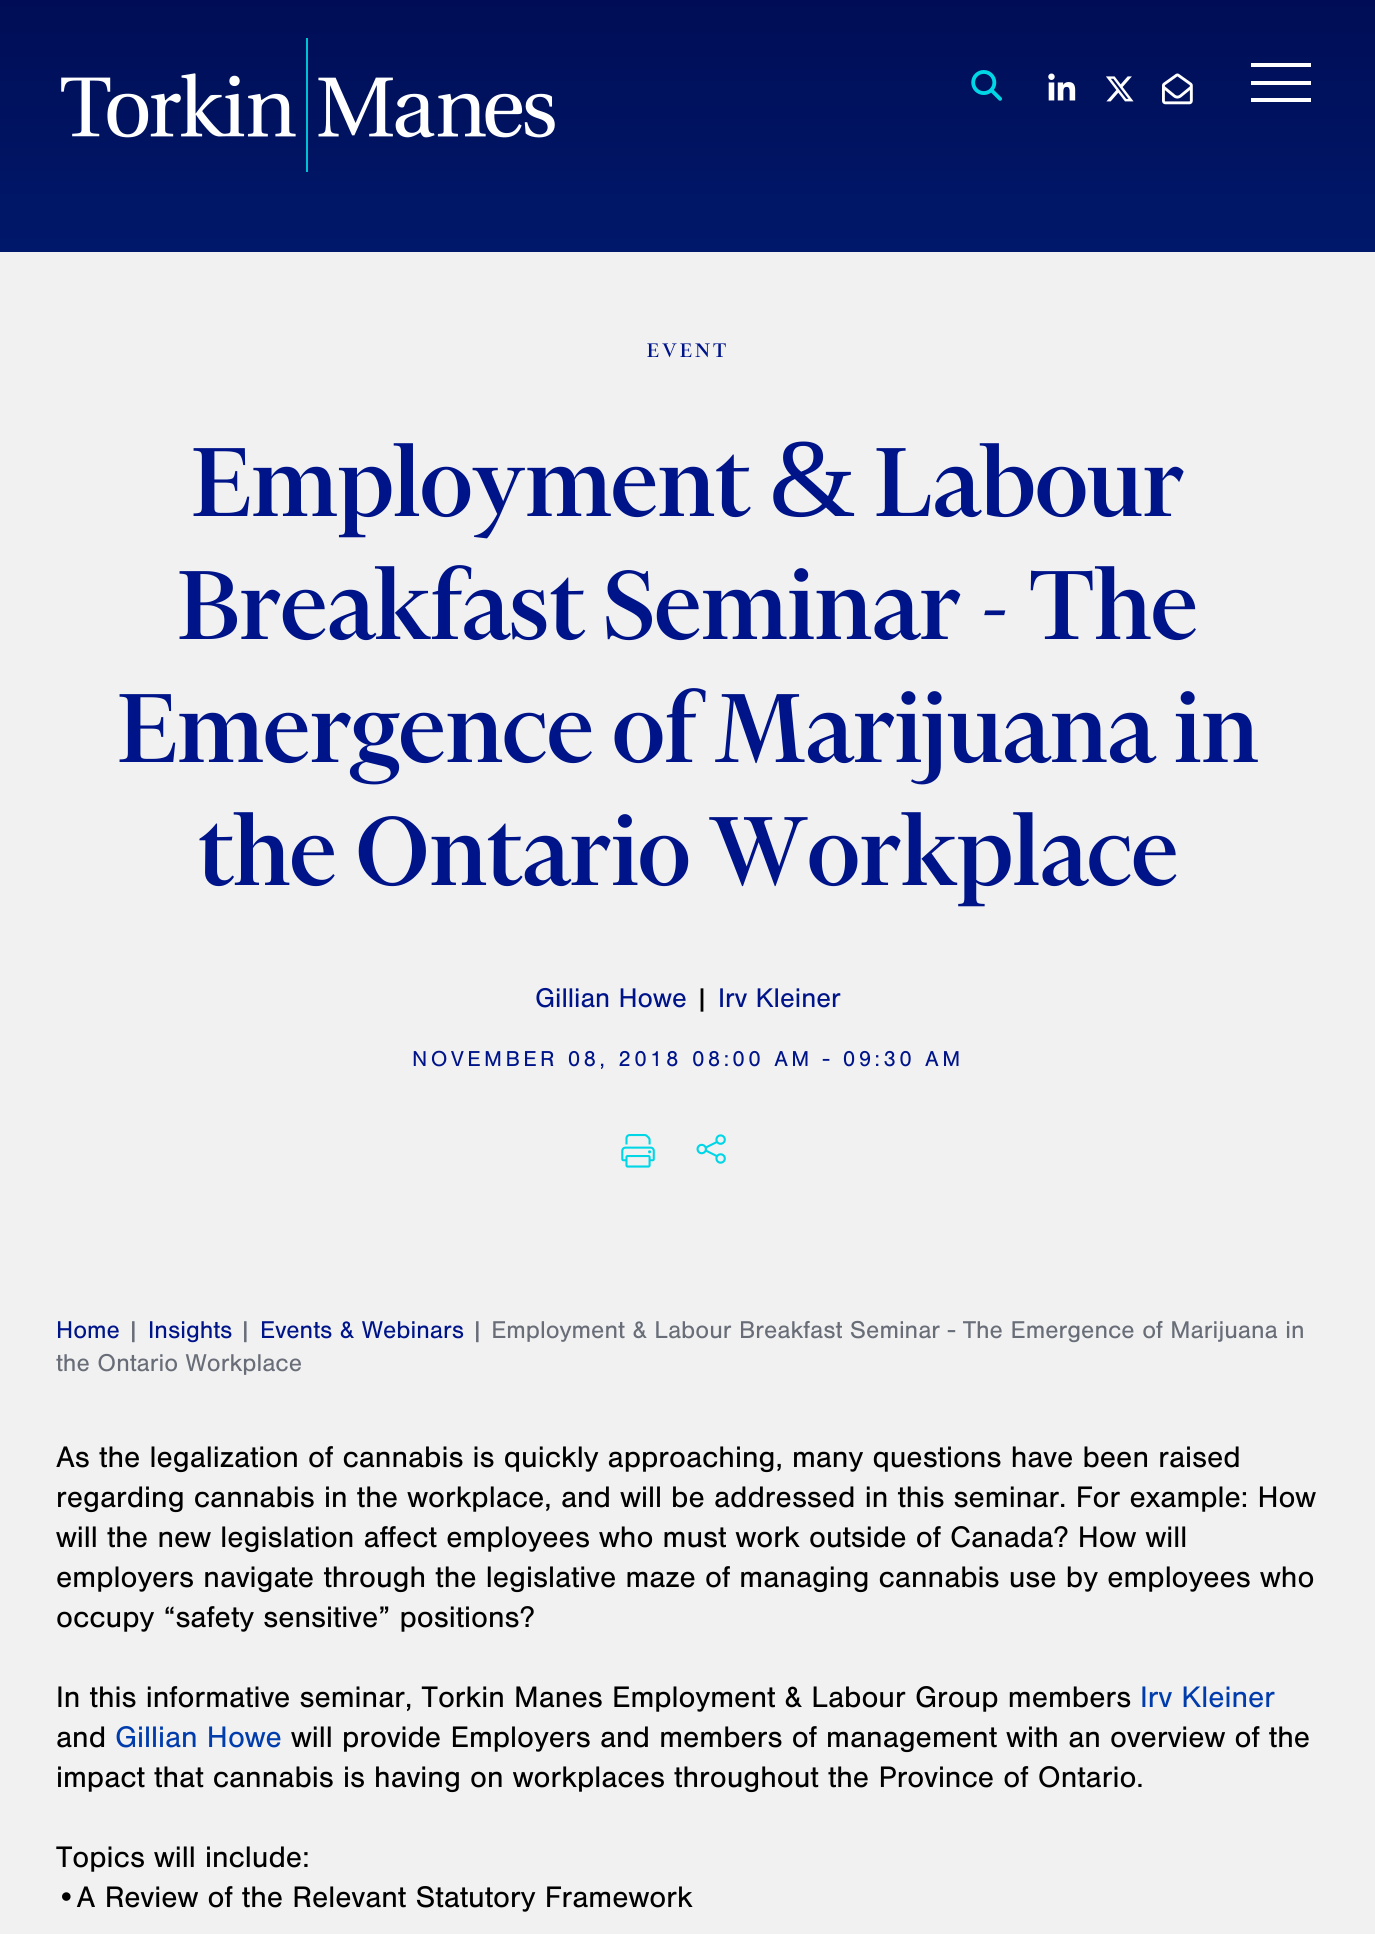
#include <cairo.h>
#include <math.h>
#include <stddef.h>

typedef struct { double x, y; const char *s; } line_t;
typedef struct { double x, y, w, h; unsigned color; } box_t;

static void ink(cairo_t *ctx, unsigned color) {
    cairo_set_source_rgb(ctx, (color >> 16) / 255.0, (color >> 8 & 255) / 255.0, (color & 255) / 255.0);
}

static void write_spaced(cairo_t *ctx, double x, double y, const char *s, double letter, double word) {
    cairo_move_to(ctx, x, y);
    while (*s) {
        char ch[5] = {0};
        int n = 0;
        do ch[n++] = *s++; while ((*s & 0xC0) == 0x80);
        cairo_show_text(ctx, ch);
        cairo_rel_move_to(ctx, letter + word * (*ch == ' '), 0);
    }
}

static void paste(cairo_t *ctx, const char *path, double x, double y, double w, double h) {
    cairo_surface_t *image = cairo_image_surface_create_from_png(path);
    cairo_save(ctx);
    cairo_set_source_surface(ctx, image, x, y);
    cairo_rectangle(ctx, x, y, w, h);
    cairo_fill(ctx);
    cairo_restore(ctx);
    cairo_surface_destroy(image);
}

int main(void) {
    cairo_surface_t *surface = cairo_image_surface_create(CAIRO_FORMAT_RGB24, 1375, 1934);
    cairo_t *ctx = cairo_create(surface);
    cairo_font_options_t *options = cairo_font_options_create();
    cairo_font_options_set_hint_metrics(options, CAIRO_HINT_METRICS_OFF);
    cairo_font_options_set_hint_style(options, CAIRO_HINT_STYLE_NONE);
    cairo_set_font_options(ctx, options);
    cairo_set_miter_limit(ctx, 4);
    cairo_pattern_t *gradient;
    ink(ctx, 0xFFFFFF);
    cairo_paint(ctx);
    gradient = cairo_pattern_create_linear(688, 0, 688, 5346);
    cairo_pattern_add_color_stop_rgba(gradient, 0, 0, 0.051, 0.337, 1);
    cairo_pattern_add_color_stop_rgba(gradient, 0.2, 0.004, 0.235, 0.675, 1);
    cairo_set_source(ctx, gradient);
    cairo_pattern_destroy(gradient);
    cairo_rectangle(ctx, 0, 0, 1375, 252);
    cairo_fill(ctx);
    paste(ctx, "media/1.png", 61, 38, 494, 134);
    paste(ctx, "media/2.png", 971, 70, 31, 31);
    paste(ctx, "media/3.png", 1048, 73, 28, 28);
    paste(ctx, "media/4.png", 1106, 76, 28, 26);
    paste(ctx, "media/5.png", 1162, 73, 31, 32);
    {
        static const box_t items[] = {
            {1251, 81, 60, 4, 0xFFFFFF},
            {1251, 63, 60, 4, 0xFFFFFF},
            {1251, 98, 60, 4, 0xFFFFFF},
            {0, 252, 1375, 1682, 0xF1F1F1},
        };
        for (size_t i = 0; i < sizeof items / sizeof *items; i++) {
            ink(ctx, items[i].color);
            cairo_rectangle(ctx, items[i].x, items[i].y, items[i].w, items[i].h);
            cairo_fill(ctx);
        }
    }
    cairo_select_font_face(ctx, "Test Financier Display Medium", CAIRO_FONT_SLANT_NORMAL, CAIRO_FONT_WEIGHT_NORMAL);
    cairo_set_font_size(ctx, 22.4);
    ink(ctx, 0x001489);
    write_spaced(ctx, 647, 357, "EVENT", 3.35, 0);
    cairo_set_font_size(ctx, 112);
    cairo_move_to(ctx, 192, 516);
    cairo_show_text(ctx, "Employment");
    cairo_select_font_face(ctx, "Liberation Serif", CAIRO_FONT_SLANT_NORMAL, CAIRO_FONT_WEIGHT_NORMAL);
    cairo_move_to(ctx, 769, 516);
    cairo_show_text(ctx, "&");
    cairo_select_font_face(ctx, "Test Financier Display Medium", CAIRO_FONT_SLANT_NORMAL, CAIRO_FONT_WEIGHT_NORMAL);
    {
        static const line_t items[] = {
            {875, 516, "Labour"},
            {178, 639, "Breakfast Seminar - The"},
            {118, 762, "Emergence of Marijuana in"},
            {198, 885, "the Ontario Workplace"},
        };
        for (size_t i = 0; i < sizeof items / sizeof *items; i++) {
            cairo_move_to(ctx, items[i].x, items[i].y);
            cairo_show_text(ctx, items[i].s);
        }
    }
    cairo_select_font_face(ctx, "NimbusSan", CAIRO_FONT_SLANT_NORMAL, CAIRO_FONT_WEIGHT_NORMAL);
    cairo_set_font_size(ctx, 28);
    cairo_move_to(ctx, 535, 1007);
    cairo_show_text(ctx, "Gillian Howe");
    ink(ctx, 0x000000);
    cairo_move_to(ctx, 695, 1007);
    cairo_show_text(ctx, "|");
    ink(ctx, 0x001489);
    cairo_move_to(ctx, 718, 1007);
    cairo_show_text(ctx, "Irv Kleiner");
    cairo_set_font_size(ctx, 22.4);
    write_spaced(ctx, 412, 1066, "NOVEMBER 08, 2018 08:00 AM - 09:30 AM", 3.35, 0);
    paste(ctx, "media/6.png", 621, 1134, 34, 34);
    paste(ctx, "media/7.png", 696, 1134, 30, 30);
    cairo_set_font_size(ctx, 25.2);
    cairo_move_to(ctx, 56, 1338);
    cairo_show_text(ctx, "Home");
    ink(ctx, 0x686D78);
    cairo_move_to(ctx, 127, 1338);
    cairo_show_text(ctx, "|");
    ink(ctx, 0x001489);
    cairo_move_to(ctx, 148, 1338);
    cairo_show_text(ctx, "Insights");
    ink(ctx, 0x686D78);
    cairo_move_to(ctx, 239, 1338);
    cairo_show_text(ctx, "|");
    ink(ctx, 0x001489);
    cairo_move_to(ctx, 260, 1338);
    cairo_show_text(ctx, "Events & Webinars");
    ink(ctx, 0x686D78);
    cairo_move_to(ctx, 471, 1338);
    cairo_show_text(ctx, "| Employment & Labour Breakfast Seminar - The Emergence of Marijuana in");
    cairo_move_to(ctx, 56, 1371);
    cairo_show_text(ctx, "the Ontario Workplace");
    cairo_set_font_size(ctx, 30.8);
    ink(ctx, 0x000000);
    {
        static const line_t items[] = {
            {56, 1467, "As the legalization of cannabis is quickly approaching, many questions have been raised"},
            {56, 1507, "regarding cannabis in the workplace, and will be addressed in this seminar. For example: How"},
            {56, 1547, "will the new legislation affect employees who must work outside of Canada? How will"},
            {56, 1587, "employers navigate through the legislative maze of managing cannabis use by employees who"},
            {56, 1627, "occupy “safety sensitive” positions?"},
            {56, 1707, "In this informative seminar, Torkin Manes Employment & Labour Group members"},
        };
        for (size_t i = 0; i < sizeof items / sizeof *items; i++) {
            cairo_move_to(ctx, items[i].x, items[i].y);
            cairo_show_text(ctx, items[i].s);
        }
    }
    ink(ctx, 0x013CAC);
    cairo_move_to(ctx, 1140, 1707);
    cairo_show_text(ctx, "Irv Kleiner");
    ink(ctx, 0x000000);
    cairo_move_to(ctx, 56, 1747);
    cairo_show_text(ctx, "and");
    ink(ctx, 0x013CAC);
    cairo_move_to(ctx, 115, 1747);
    cairo_show_text(ctx, "Gillian Howe");
    ink(ctx, 0x000000);
    {
        static const line_t items[] = {
            {291, 1747, "will provide Employers and members of management with an overview of the"},
            {56, 1787, "impact that cannabis is having on workplaces throughout the Province of Ontario."},
            {56, 1867, "Topics will include:"},
            {56, 1907, "•A Review of the Relevant Statutory Framework"},
        };
        for (size_t i = 0; i < sizeof items / sizeof *items; i++) {
            cairo_move_to(ctx, items[i].x, items[i].y);
            cairo_show_text(ctx, items[i].s);
        }
    }
    cairo_surface_write_to_png(surface, "image.png");
    cairo_font_options_destroy(options);
    cairo_destroy(ctx);
    cairo_surface_destroy(surface);
    return 0;
}
